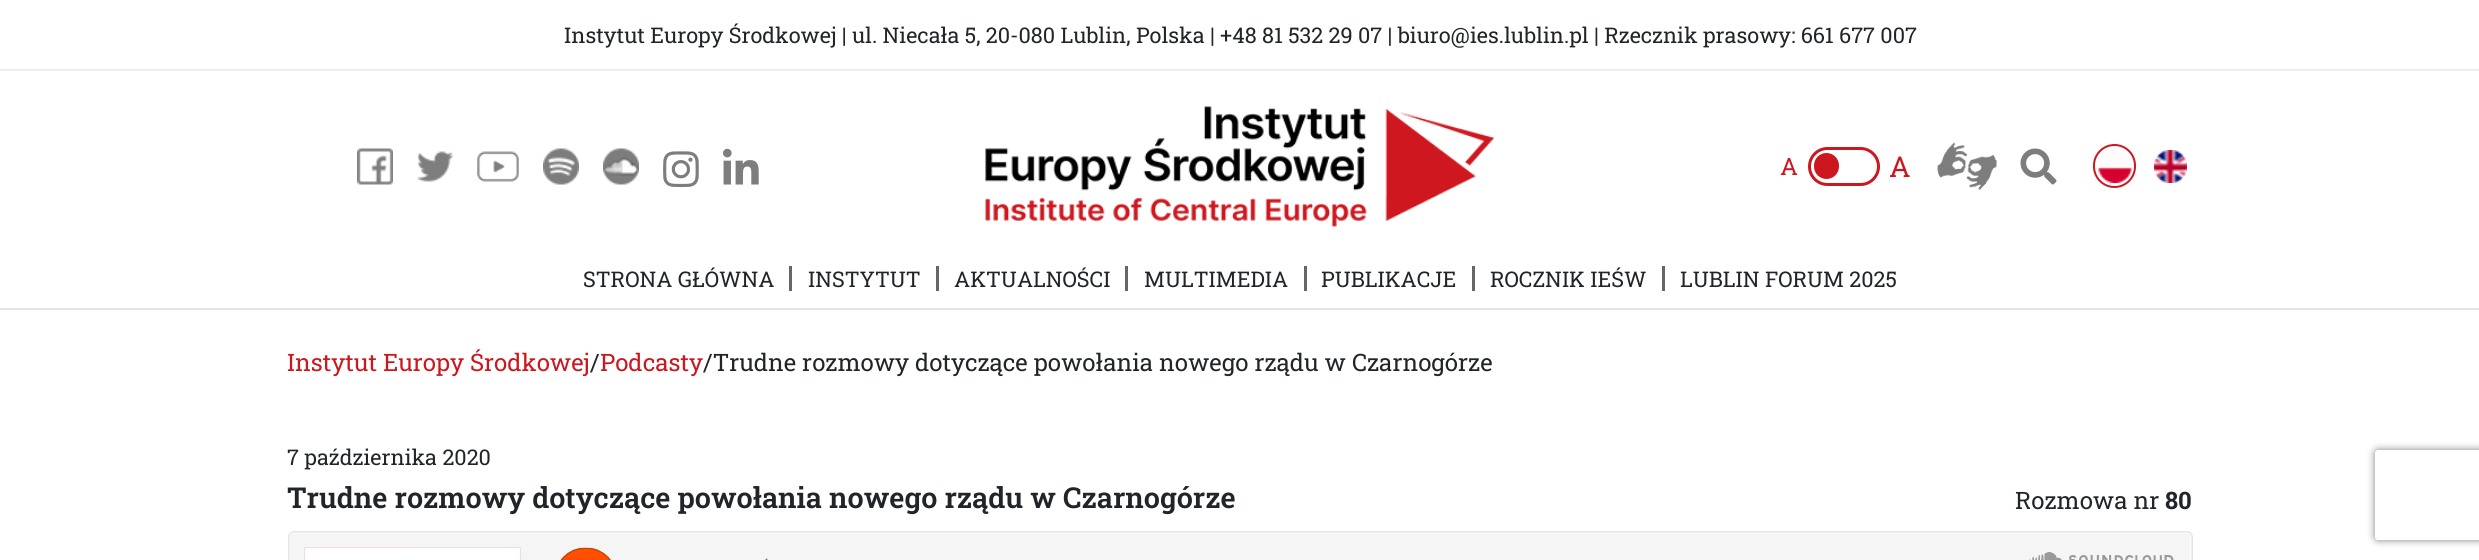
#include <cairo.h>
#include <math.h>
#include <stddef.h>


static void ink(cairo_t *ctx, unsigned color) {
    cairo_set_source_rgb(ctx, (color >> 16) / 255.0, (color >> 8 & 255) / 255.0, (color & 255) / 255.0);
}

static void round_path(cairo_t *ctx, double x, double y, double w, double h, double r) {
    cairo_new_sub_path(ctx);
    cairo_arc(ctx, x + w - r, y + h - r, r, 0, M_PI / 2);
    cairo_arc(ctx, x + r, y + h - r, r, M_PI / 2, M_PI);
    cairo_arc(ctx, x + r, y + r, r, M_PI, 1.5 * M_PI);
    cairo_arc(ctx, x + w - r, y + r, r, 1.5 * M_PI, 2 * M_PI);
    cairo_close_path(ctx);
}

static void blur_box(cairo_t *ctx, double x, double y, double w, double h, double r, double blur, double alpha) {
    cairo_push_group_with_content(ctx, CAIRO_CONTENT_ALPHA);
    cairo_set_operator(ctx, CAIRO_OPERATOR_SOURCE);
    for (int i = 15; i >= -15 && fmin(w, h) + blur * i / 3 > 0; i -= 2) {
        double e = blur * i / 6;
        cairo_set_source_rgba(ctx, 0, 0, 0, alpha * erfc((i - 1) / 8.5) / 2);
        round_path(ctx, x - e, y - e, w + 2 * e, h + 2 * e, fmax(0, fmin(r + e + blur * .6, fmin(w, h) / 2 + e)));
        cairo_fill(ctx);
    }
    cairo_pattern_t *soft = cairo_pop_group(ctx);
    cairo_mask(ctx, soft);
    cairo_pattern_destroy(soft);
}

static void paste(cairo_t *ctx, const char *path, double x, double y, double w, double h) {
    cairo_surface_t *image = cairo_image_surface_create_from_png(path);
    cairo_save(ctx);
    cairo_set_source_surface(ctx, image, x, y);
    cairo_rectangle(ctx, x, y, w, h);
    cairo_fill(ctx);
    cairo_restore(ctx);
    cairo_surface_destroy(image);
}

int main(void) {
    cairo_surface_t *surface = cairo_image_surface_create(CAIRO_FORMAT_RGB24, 2479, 560);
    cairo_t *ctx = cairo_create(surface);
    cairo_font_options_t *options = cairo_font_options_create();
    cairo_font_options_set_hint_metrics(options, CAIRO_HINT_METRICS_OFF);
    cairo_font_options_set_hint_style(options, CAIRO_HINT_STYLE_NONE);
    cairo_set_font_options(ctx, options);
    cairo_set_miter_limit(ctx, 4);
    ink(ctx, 0xFFFFFF);
    cairo_paint(ctx);
    ink(ctx, 0xE3E3E3);
    cairo_rectangle(ctx, 0, 308, 2479, 2);
    cairo_fill(ctx);
    ink(ctx, 0xEDEDED);
    cairo_rectangle(ctx, 0, 69, 2479, 2);
    cairo_fill(ctx);
    cairo_select_font_face(ctx, "Roboto Slab", CAIRO_FONT_SLANT_NORMAL, CAIRO_FONT_WEIGHT_NORMAL);
    cairo_set_font_size(ctx, 21.6);
    ink(ctx, 0x212529);
    cairo_move_to(ctx, 564, 43);
    cairo_show_text(ctx, "Instytut Europy Środkowej | ul. Niecała 5, 20-080 Lublin, Polska | +48 81 532 29 07 | biuro@ies.lublin.pl | Rzecznik prasowy: 661 677 007");
    paste(ctx, "media/1.png", 357, 148, 36, 37);
    paste(ctx, "media/2.png", 417, 151, 36, 31);
    paste(ctx, "media/3.png", 477, 151, 42, 31);
    paste(ctx, "media/4.png", 543, 148, 36, 37);
    paste(ctx, "media/5.png", 603, 148, 36, 37);
    paste(ctx, "media/6.png", 663, 151, 36, 37);
    paste(ctx, "media/7.png", 723, 148, 36, 37);
    paste(ctx, "media/8.png", 985, 106, 509, 121);
    cairo_set_font_size(ctx, 24);
    ink(ctx, 0xCD171F);
    cairo_move_to(ctx, 1780, 175);
    cairo_show_text(ctx, "A");
    round_path(ctx, 1809.5, 148.5, 69, 36, 18);
    cairo_set_line_width(ctx, 3);
    cairo_stroke(ctx);
    round_path(ctx, 1814, 153, 25, 26, 12.5);
    cairo_fill(ctx);
    cairo_set_font_size(ctx, 28.8);
    cairo_move_to(ctx, 1889, 177);
    cairo_show_text(ctx, "A");
    paste(ctx, "media/9.png", 1937, 142, 60, 49);
    paste(ctx, "media/10.png", 2020, 148, 37, 37);
    paste(ctx, "media/11.png", 2098, 150, 34, 33);
    round_path(ctx, 2094, 145, 41, 42, 20.5);
    cairo_set_line_width(ctx, 2);
    cairo_stroke(ctx);
    paste(ctx, "media/12.png", 2154, 150, 33, 33);
    cairo_set_font_size(ctx, 21.6);
    ink(ctx, 0x212529);
    cairo_move_to(ctx, 583, 287);
    cairo_show_text(ctx, "STRONA GŁÓWNA");
    ink(ctx, 0x666666);
    cairo_rectangle(ctx, 789, 266, 3, 25);
    cairo_fill(ctx);
    ink(ctx, 0x212529);
    cairo_move_to(ctx, 808, 287);
    cairo_show_text(ctx, "INSTYTUT");
    ink(ctx, 0x666666);
    cairo_rectangle(ctx, 936, 266, 3, 25);
    cairo_fill(ctx);
    ink(ctx, 0x212529);
    cairo_move_to(ctx, 954, 287);
    cairo_show_text(ctx, "AKTUALNOŚCI");
    ink(ctx, 0x666666);
    cairo_rectangle(ctx, 1125, 266, 3, 25);
    cairo_fill(ctx);
    ink(ctx, 0x212529);
    cairo_move_to(ctx, 1144, 287);
    cairo_show_text(ctx, "MULTIMEDIA");
    ink(ctx, 0x666666);
    cairo_rectangle(ctx, 1304, 266, 3, 25);
    cairo_fill(ctx);
    ink(ctx, 0x212529);
    cairo_move_to(ctx, 1321, 287);
    cairo_show_text(ctx, "PUBLIKACJE");
    ink(ctx, 0x666666);
    cairo_rectangle(ctx, 1472, 266, 3, 25);
    cairo_fill(ctx);
    ink(ctx, 0x212529);
    cairo_move_to(ctx, 1490, 287);
    cairo_show_text(ctx, "ROCZNIK IEŚW");
    ink(ctx, 0x666666);
    cairo_rectangle(ctx, 1662, 266, 3, 25);
    cairo_fill(ctx);
    ink(ctx, 0x212529);
    cairo_move_to(ctx, 1680, 287);
    cairo_show_text(ctx, "LUBLIN FORUM 2025");
    cairo_set_font_size(ctx, 24);
    ink(ctx, 0xCD171F);
    cairo_move_to(ctx, 287, 371);
    cairo_show_text(ctx, "Instytut Europy Środkowej");
    ink(ctx, 0x212529);
    cairo_move_to(ctx, 590, 371);
    cairo_show_text(ctx, "/");
    ink(ctx, 0xCD171F);
    cairo_move_to(ctx, 600, 371);
    cairo_show_text(ctx, "Podcasty");
    ink(ctx, 0x212529);
    cairo_move_to(ctx, 703, 371);
    cairo_show_text(ctx, "/Trudne rozmowy dotyczące powołania nowego rządu w Czarnogórze");
    cairo_set_font_size(ctx, 21.6);
    cairo_move_to(ctx, 287, 465);
    cairo_show_text(ctx, "7 października 2020");
    cairo_select_font_face(ctx, "Roboto Slab SemiBold", CAIRO_FONT_SLANT_NORMAL, CAIRO_FONT_WEIGHT_NORMAL);
    cairo_set_font_size(ctx, 28.8);
    cairo_move_to(ctx, 287, 508);
    cairo_show_text(ctx, "Trudne rozmowy dotyczące powołania nowego rządu w Czarnogórze");
    cairo_select_font_face(ctx, "Roboto Slab", CAIRO_FONT_SLANT_NORMAL, CAIRO_FONT_WEIGHT_NORMAL);
    cairo_set_font_size(ctx, 24);
    cairo_move_to(ctx, 2015, 509);
    cairo_show_text(ctx, "Rozmowa nr");
    cairo_select_font_face(ctx, "Roboto Slab", CAIRO_FONT_SLANT_NORMAL, CAIRO_FONT_WEIGHT_BOLD);
    cairo_move_to(ctx, 2165, 509);
    cairo_show_text(ctx, "80");
    paste(ctx, "media/13.png", 288, 531, 1905, 29);
    cairo_save(ctx);
    cairo_set_fill_rule(ctx, CAIRO_FILL_RULE_EVEN_ODD);
    cairo_new_path(ctx);
    cairo_move_to(ctx, 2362, 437);
    cairo_line_to(ctx, 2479, 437);
    cairo_line_to(ctx, 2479, 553);
    cairo_line_to(ctx, 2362, 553);
    cairo_close_path(ctx);
    cairo_move_to(ctx, 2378, 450);
    cairo_line_to(ctx, 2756, 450);
    cairo_curve_to(ctx, 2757.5, 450, 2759, 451.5, 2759, 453);
    cairo_line_to(ctx, 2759, 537);
    cairo_curve_to(ctx, 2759, 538.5, 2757.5, 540, 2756, 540);
    cairo_line_to(ctx, 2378, 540);
    cairo_curve_to(ctx, 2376.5, 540, 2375, 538.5, 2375, 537);
    cairo_line_to(ctx, 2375, 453);
    cairo_curve_to(ctx, 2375, 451.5, 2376.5, 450, 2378, 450);
    cairo_close_path(ctx);
    cairo_clip(ctx);
    ink(ctx, 0x808080);
    blur_box(ctx, 2375, 450, 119, 90, 3, 4, 1);
    cairo_restore(ctx);
    cairo_surface_write_to_png(surface, "image.png");
    cairo_font_options_destroy(options);
    cairo_destroy(ctx);
    cairo_surface_destroy(surface);
    return 0;
}
